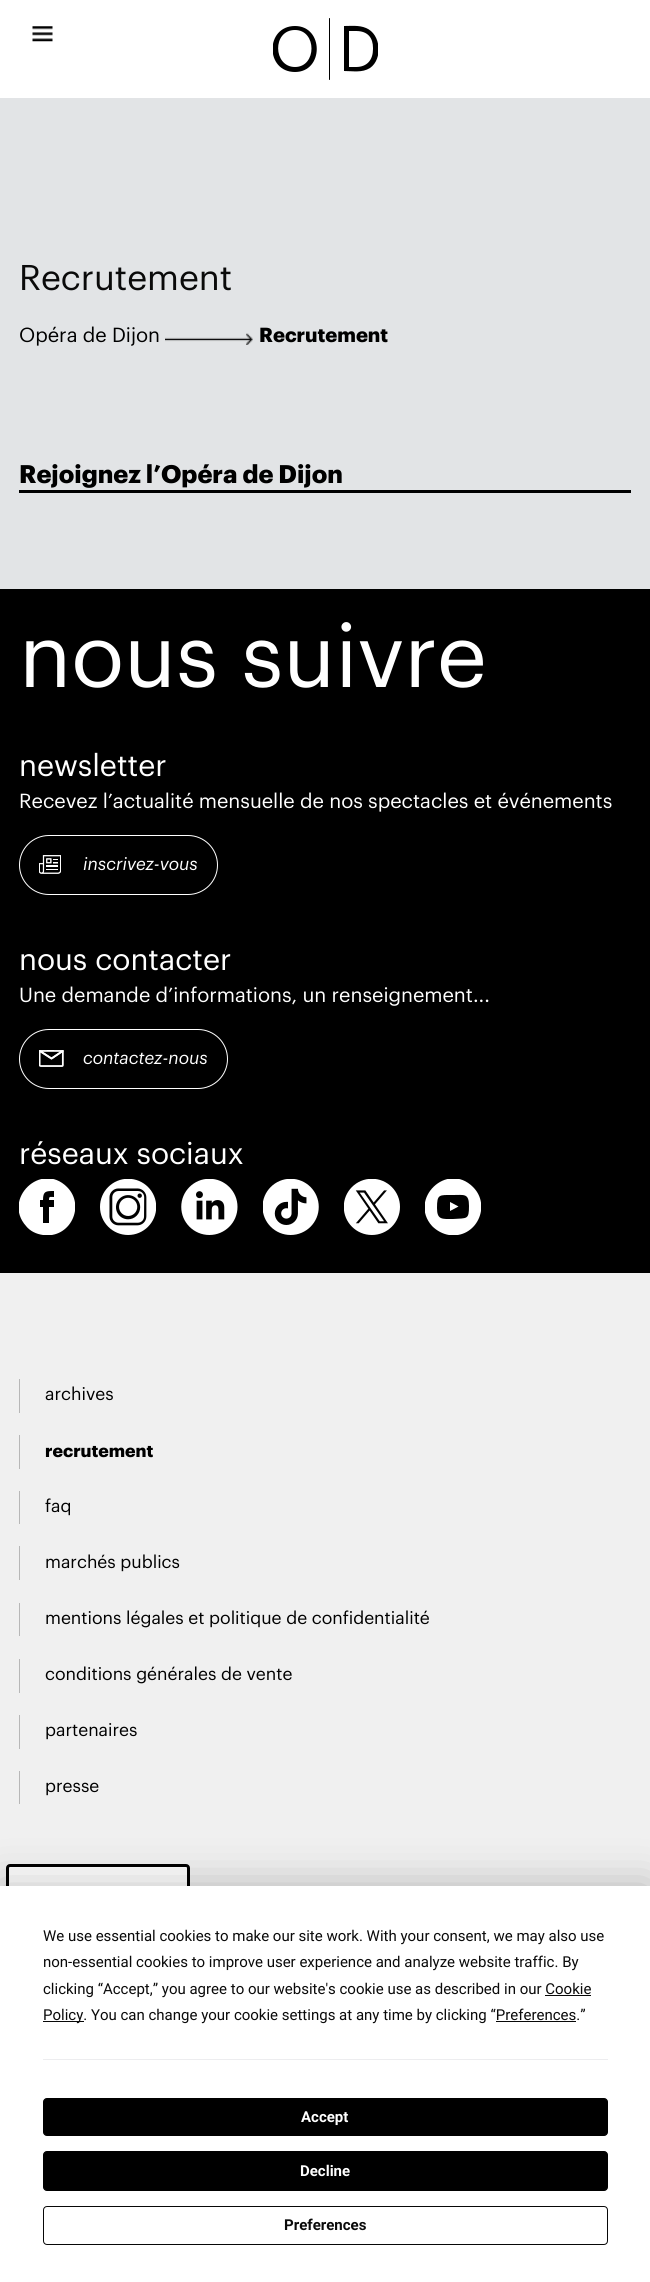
#include <cairo.h>
#include <math.h>
#include <stddef.h>

typedef struct { double x, y; const char *s; } line_t;
typedef struct { double x, y, w, h; unsigned color; } box_t;

static void ink(cairo_t *ctx, unsigned color) {
    cairo_set_source_rgb(ctx, (color >> 16) / 255.0, (color >> 8 & 255) / 255.0, (color & 255) / 255.0);
}

static void round_path(cairo_t *ctx, double x, double y, double w, double h, double r) {
    cairo_new_sub_path(ctx);
    cairo_arc(ctx, x + w - r, y + h - r, r, 0, M_PI / 2);
    cairo_arc(ctx, x + r, y + h - r, r, M_PI / 2, M_PI);
    cairo_arc(ctx, x + r, y + r, r, M_PI, 1.5 * M_PI);
    cairo_arc(ctx, x + w - r, y + r, r, 1.5 * M_PI, 2 * M_PI);
    cairo_close_path(ctx);
}

static void blur_box(cairo_t *ctx, double x, double y, double w, double h, double r, double blur, double alpha) {
    cairo_push_group_with_content(ctx, CAIRO_CONTENT_ALPHA);
    cairo_set_operator(ctx, CAIRO_OPERATOR_SOURCE);
    for (int i = 15; i >= -15 && fmin(w, h) + blur * i / 3 > 0; i -= 2) {
        double e = blur * i / 6;
        cairo_set_source_rgba(ctx, 0, 0, 0, alpha * erfc((i - 1) / 8.5) / 2);
        round_path(ctx, x - e, y - e, w + 2 * e, h + 2 * e, fmax(0, fmin(r + e + blur * .6, fmin(w, h) / 2 + e)));
        cairo_fill(ctx);
    }
    cairo_pattern_t *soft = cairo_pop_group(ctx);
    cairo_mask(ctx, soft);
    cairo_pattern_destroy(soft);
}

static void paste(cairo_t *ctx, const char *path, double x, double y, double w, double h) {
    cairo_surface_t *image = cairo_image_surface_create_from_png(path);
    cairo_save(ctx);
    cairo_set_source_surface(ctx, image, x, y);
    cairo_rectangle(ctx, x, y, w, h);
    cairo_fill(ctx);
    cairo_restore(ctx);
    cairo_surface_destroy(image);
}

int main(void) {
    cairo_surface_t *surface = cairo_image_surface_create(CAIRO_FORMAT_RGB24, 650, 2282);
    cairo_t *ctx = cairo_create(surface);
    cairo_font_options_t *options = cairo_font_options_create();
    cairo_font_options_set_hint_metrics(options, CAIRO_HINT_METRICS_OFF);
    cairo_font_options_set_hint_style(options, CAIRO_HINT_STYLE_NONE);
    cairo_set_font_options(ctx, options);
    cairo_set_miter_limit(ctx, 4);
    ink(ctx, 0xE2E4E6);
    cairo_paint(ctx);
    ink(ctx, 0xFFFFFF);
    cairo_rectangle(ctx, 0, 0, 650, 98);
    cairo_fill(ctx);
    cairo_save(ctx);
    cairo_rectangle(ctx, 273, 18, 105, 62);
    cairo_clip(ctx);
    ink(ctx, 0x000000);
    cairo_new_path(ctx);
    cairo_move_to(ctx, 344, 71);
    cairo_curve_to(ctx, 353, 71, 362, 73, 370, 68);
    cairo_curve_to(ctx, 383, 59, 381, 34, 366, 28);
    cairo_curve_to(ctx, 359, 25, 351, 26, 344, 26);
    cairo_close_path(ctx);
    cairo_move_to(ctx, 349, 67);
    cairo_line_to(ctx, 349, 31);
    cairo_line_to(ctx, 356, 31);
    cairo_curve_to(ctx, 368, 31, 373, 38, 373, 48);
    cairo_line_to(ctx, 373, 49);
    cairo_curve_to(ctx, 373, 60, 367, 67, 356, 67);
    cairo_close_path(ctx);
    cairo_move_to(ctx, 295, 72);
    cairo_curve_to(ctx, 324, 72, 324, 26, 295, 26);
    cairo_curve_to(ctx, 265, 26, 265, 72, 295, 72);
    cairo_move_to(ctx, 295, 67);
    cairo_curve_to(ctx, 273, 67, 272, 30, 295, 30);
    cairo_curve_to(ctx, 317, 30, 317, 67, 295, 67);
    cairo_fill(ctx);
    cairo_restore(ctx);
    ink(ctx, 0x000000);
    round_path(ctx, 329, 18, 1, 62, 0.5);
    cairo_fill(ctx);
    paste(ctx, "media/1.png", 32, 26, 21, 16);
    cairo_select_font_face(ctx, "Graphik", CAIRO_FONT_SLANT_NORMAL, CAIRO_FONT_WEIGHT_NORMAL);
    cairo_set_font_size(ctx, 35);
    ink(ctx, 0x0A0A0A);
    cairo_move_to(ctx, 19, 290);
    cairo_show_text(ctx, "Recrutement");
    cairo_set_font_size(ctx, 20);
    ink(ctx, 0x000000);
    cairo_move_to(ctx, 19, 342);
    cairo_show_text(ctx, "Opéra de Dijon");
    paste(ctx, "media/2.png", 165, 333, 88, 12);
    cairo_select_font_face(ctx, "Graphik", CAIRO_FONT_SLANT_NORMAL, CAIRO_FONT_WEIGHT_BOLD);
    cairo_move_to(ctx, 259, 342);
    cairo_show_text(ctx, "Recrutement");
    cairo_rectangle(ctx, 19, 490, 612, 3);
    cairo_fill(ctx);
    cairo_set_font_size(ctx, 25);
    cairo_move_to(ctx, 19, 483);
    cairo_show_text(ctx, "Rejoignez l’Opéra de Dijon");
    cairo_rectangle(ctx, 0, 589, 650, 684);
    cairo_fill(ctx);
    cairo_select_font_face(ctx, "Graphik", CAIRO_FONT_SLANT_NORMAL, CAIRO_FONT_WEIGHT_NORMAL);
    cairo_set_font_size(ctx, 87.5);
    ink(ctx, 0xFFFFFF);
    cairo_move_to(ctx, 19, 687);
    cairo_show_text(ctx, "nous suivre");
    cairo_set_font_size(ctx, 30);
    cairo_move_to(ctx, 19, 776);
    cairo_show_text(ctx, "newsletter");
    cairo_set_font_size(ctx, 20);
    cairo_move_to(ctx, 19, 808);
    cairo_show_text(ctx, "Recevez l’actualité mensuelle de nos spectacles et événements");
    paste(ctx, "media/3.png", 39, 855, 22, 19);
    round_path(ctx, 19.5, 835.5, 198, 59, 29.5);
    cairo_set_line_width(ctx, 1);
    cairo_stroke(ctx);
    cairo_select_font_face(ctx, "Graphik", CAIRO_FONT_SLANT_ITALIC, CAIRO_FONT_WEIGHT_NORMAL);
    cairo_set_font_size(ctx, 17.5);
    cairo_move_to(ctx, 83, 870);
    cairo_show_text(ctx, "inscrivez-vous");
    cairo_select_font_face(ctx, "Graphik", CAIRO_FONT_SLANT_NORMAL, CAIRO_FONT_WEIGHT_NORMAL);
    cairo_set_font_size(ctx, 30);
    cairo_move_to(ctx, 19, 970);
    cairo_show_text(ctx, "nous contacter");
    cairo_set_font_size(ctx, 20);
    cairo_move_to(ctx, 19, 1002);
    cairo_show_text(ctx, "Une demande d’informations, un renseignement...");
    paste(ctx, "media/4.png", 39, 1050, 25, 17);
    round_path(ctx, 19.5, 1029.5, 208, 59, 29.5);
    cairo_stroke(ctx);
    cairo_select_font_face(ctx, "Graphik", CAIRO_FONT_SLANT_ITALIC, CAIRO_FONT_WEIGHT_NORMAL);
    cairo_set_font_size(ctx, 17.5);
    cairo_move_to(ctx, 83, 1064);
    cairo_show_text(ctx, "contactez-nous");
    cairo_select_font_face(ctx, "Graphik", CAIRO_FONT_SLANT_NORMAL, CAIRO_FONT_WEIGHT_NORMAL);
    cairo_set_font_size(ctx, 30);
    cairo_move_to(ctx, 19, 1164);
    cairo_show_text(ctx, "réseaux sociaux");
    cairo_save(ctx);
    cairo_rectangle(ctx, 19, 1179, 56, 56);
    cairo_clip(ctx);
    cairo_new_path(ctx);
    cairo_move_to(ctx, 54, 1204);
    cairo_line_to(ctx, 54, 1207);
    cairo_line_to(ctx, 49, 1207);
    cairo_line_to(ctx, 49, 1223);
    cairo_line_to(ctx, 43, 1223);
    cairo_line_to(ctx, 43, 1207);
    cairo_line_to(ctx, 40, 1207);
    cairo_line_to(ctx, 40, 1200);
    cairo_line_to(ctx, 43, 1200);
    cairo_curve_to(ctx, 43, 1191, 46, 1191, 54, 1191);
    cairo_line_to(ctx, 54, 1197);
    cairo_curve_to(ctx, 50, 1197, 49, 1196, 49, 1200);
    cairo_line_to(ctx, 54, 1200);
    cairo_close_path(ctx);
    cairo_move_to(ctx, 67, 1187);
    cairo_curve_to(ctx, 41, 1161, 2, 1199, 26, 1226);
    cairo_curve_to(ctx, 30, 1231, 36, 1234, 43, 1235);
    cairo_curve_to(ctx, 70, 1239, 86, 1206, 67, 1187);
    cairo_fill(ctx);
    cairo_restore(ctx);
    paste(ctx, "media/5.png", 100, 1179, 56, 56);
    paste(ctx, "media/6.png", 181, 1179, 57, 56);
    paste(ctx, "media/7.png", 263, 1179, 56, 56);
    paste(ctx, "media/8.png", 344, 1179, 56, 56);
    cairo_new_path(ctx);
    cairo_move_to(ctx, 450, 1202);
    cairo_line_to(ctx, 450, 1211);
    cairo_line_to(ctx, 458.5, 1206.5);
    cairo_close_path(ctx);
    cairo_fill(ctx);
    cairo_save(ctx);
    cairo_rectangle(ctx, 425, 1179, 56, 56);
    cairo_clip(ctx);
    cairo_new_path(ctx);
    cairo_move_to(ctx, 469, 1206);
    cairo_curve_to(ctx, 469, 1220, 467, 1218, 453, 1219);
    cairo_curve_to(ctx, 442, 1219, 437, 1220, 437, 1208);
    cairo_curve_to(ctx, 437, 1194, 439, 1195, 453, 1195);
    cairo_curve_to(ctx, 464, 1195, 469, 1193, 469, 1206);
    cairo_close_path(ctx);
    cairo_move_to(ctx, 473, 1187);
    cairo_curve_to(ctx, 447, 1161, 408, 1199, 432, 1226);
    cairo_curve_to(ctx, 437, 1231, 443, 1234, 449, 1235);
    cairo_curve_to(ctx, 476, 1239, 492, 1206, 473, 1187);
    cairo_fill(ctx);
    cairo_restore(ctx);
    ink(ctx, 0xF0F0F0);
    cairo_rectangle(ctx, 0, 1273, 650, 613);
    cairo_fill(ctx);
    ink(ctx, 0xB7B7B7);
    cairo_rectangle(ctx, 19, 1379, 1, 34);
    cairo_fill(ctx);
    cairo_set_font_size(ctx, 17.5);
    ink(ctx, 0x000000);
    cairo_move_to(ctx, 45, 1400);
    cairo_show_text(ctx, "archives");
    ink(ctx, 0xB7B7B7);
    cairo_rectangle(ctx, 19, 1435, 1, 34);
    cairo_fill(ctx);
    cairo_select_font_face(ctx, "Graphik", CAIRO_FONT_SLANT_NORMAL, CAIRO_FONT_WEIGHT_BOLD);
    ink(ctx, 0x000000);
    cairo_move_to(ctx, 45, 1457);
    cairo_show_text(ctx, "recrutement");
    ink(ctx, 0xB7B7B7);
    cairo_rectangle(ctx, 19, 1491, 1, 33);
    cairo_fill(ctx);
    cairo_select_font_face(ctx, "Graphik", CAIRO_FONT_SLANT_NORMAL, CAIRO_FONT_WEIGHT_NORMAL);
    ink(ctx, 0x000000);
    cairo_move_to(ctx, 45, 1512);
    cairo_show_text(ctx, "faq");
    ink(ctx, 0xB7B7B7);
    cairo_rectangle(ctx, 19, 1546, 1, 34);
    cairo_fill(ctx);
    ink(ctx, 0x000000);
    cairo_move_to(ctx, 45, 1568);
    cairo_show_text(ctx, "marchés publics");
    ink(ctx, 0xB7B7B7);
    cairo_rectangle(ctx, 19, 1603, 1, 33);
    cairo_fill(ctx);
    ink(ctx, 0x000000);
    cairo_move_to(ctx, 45, 1624);
    cairo_show_text(ctx, "mentions légales et politique de confidentialité");
    ink(ctx, 0xB7B7B7);
    cairo_rectangle(ctx, 19, 1659, 1, 34);
    cairo_fill(ctx);
    ink(ctx, 0x000000);
    cairo_move_to(ctx, 45, 1680);
    cairo_show_text(ctx, "conditions générales de vente");
    ink(ctx, 0xB7B7B7);
    cairo_rectangle(ctx, 19, 1715, 1, 34);
    cairo_fill(ctx);
    ink(ctx, 0x000000);
    cairo_move_to(ctx, 45, 1736);
    cairo_show_text(ctx, "partenaires");
    ink(ctx, 0xB7B7B7);
    cairo_rectangle(ctx, 19, 1771, 1, 33);
    cairo_fill(ctx);
    ink(ctx, 0x000000);
    cairo_move_to(ctx, 45, 1792);
    cairo_show_text(ctx, "presse");
    ink(ctx, 0xFFFFFF);
    round_path(ctx, 7.5, 1865.5, 181, 43, 2.5);
    cairo_fill_preserve(ctx);
    ink(ctx, 0x000000);
    cairo_set_line_width(ctx, 3);
    cairo_stroke(ctx);
    ink(ctx, 0x000000);
    blur_box(ctx, 0, 1886, 650, 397, 0, 22, 0.25);
    ink(ctx, 0xFFFFFF);
    cairo_rectangle(ctx, 0, 1886, 650, 396);
    cairo_fill(ctx);
    cairo_select_font_face(ctx, "Roboto", CAIRO_FONT_SLANT_NORMAL, CAIRO_FONT_WEIGHT_NORMAL);
    cairo_set_font_size(ctx, 15);
    ink(ctx, 0x0A0A0A);
    {
        static const line_t items[] = {
            {43, 1941, "We use essential cookies to make our site work. With your consent, we may also use"},
            {43, 1967, "non-essential cookies to improve user experience and analyze website traffic. By"},
            {43, 1994, "clicking “Accept,” you agree to our website's cookie use as described in our Cookie"},
        };
        for (size_t i = 0; i < sizeof items / sizeof *items; i++) {
            cairo_move_to(ctx, items[i].x, items[i].y);
            cairo_show_text(ctx, items[i].s);
        }
    }
    ink(ctx, 0x080808);
    cairo_rectangle(ctx, 43, 2021, 41, 1);
    cairo_fill(ctx);
    ink(ctx, 0x0A0A0A);
    cairo_move_to(ctx, 43, 2020);
    cairo_show_text(ctx, "Policy. You can change your cookie settings at any time by clicking “Preferences.”");
    {
        static const box_t items[] = {
            {545, 1995, 46, 1, 0x080808},
            {496, 2021, 80, 1, 0x080808},
            {43, 2059, 565, 1, 0xEDEDEF},
        };
        for (size_t i = 0; i < sizeof items / sizeof *items; i++) {
            ink(ctx, items[i].color);
            cairo_rectangle(ctx, items[i].x, items[i].y, items[i].w, items[i].h);
            cairo_fill(ctx);
        }
    }
    ink(ctx, 0x000000);
    round_path(ctx, 43.5, 2098.5, 564, 37, 3.5);
    cairo_fill_preserve(ctx);
    cairo_set_line_width(ctx, 1);
    cairo_stroke(ctx);
    cairo_select_font_face(ctx, "Roboto", CAIRO_FONT_SLANT_NORMAL, CAIRO_FONT_WEIGHT_BOLD);
    ink(ctx, 0xFFFFFF);
    cairo_move_to(ctx, 301, 2122);
    cairo_show_text(ctx, "Accept");
    ink(ctx, 0x000000);
    round_path(ctx, 43.5, 2151.5, 564, 39, 3.5);
    cairo_fill_preserve(ctx);
    cairo_stroke(ctx);
    ink(ctx, 0xFFFFFF);
    cairo_move_to(ctx, 300, 2176);
    cairo_show_text(ctx, "Decline");
    round_path(ctx, 43.5, 2206.5, 564, 38, 3.5);
    ink(ctx, 0x080808);
    cairo_stroke(ctx);
    ink(ctx, 0x0A0A0A);
    cairo_move_to(ctx, 284, 2230);
    cairo_show_text(ctx, "Preferences");
    cairo_surface_write_to_png(surface, "image.png");
    cairo_font_options_destroy(options);
    cairo_destroy(ctx);
    cairo_surface_destroy(surface);
    return 0;
}
